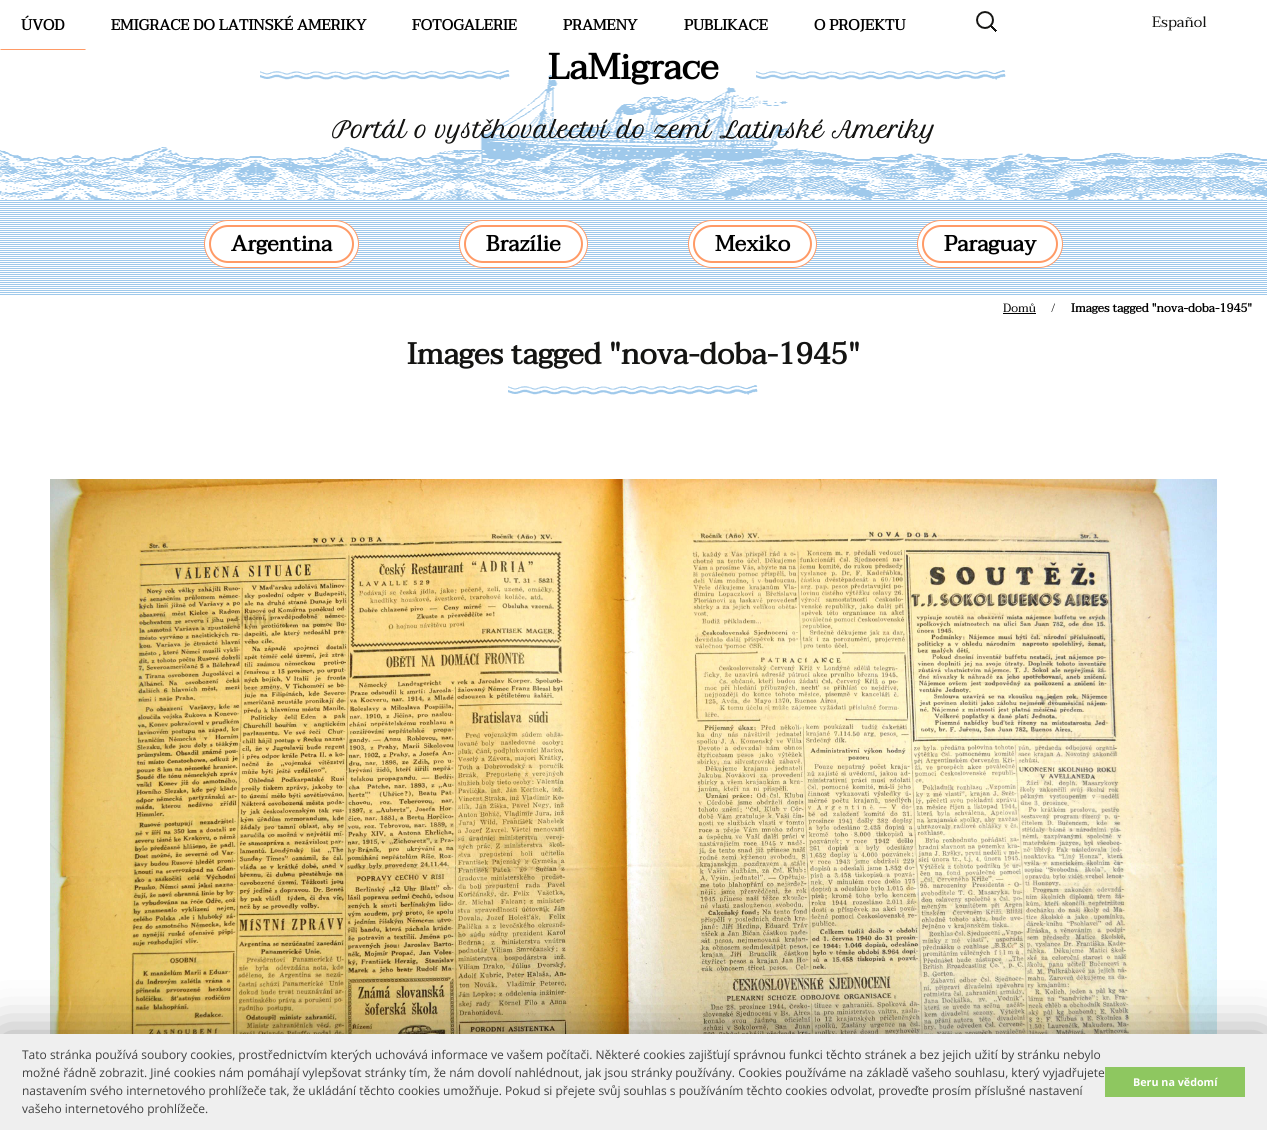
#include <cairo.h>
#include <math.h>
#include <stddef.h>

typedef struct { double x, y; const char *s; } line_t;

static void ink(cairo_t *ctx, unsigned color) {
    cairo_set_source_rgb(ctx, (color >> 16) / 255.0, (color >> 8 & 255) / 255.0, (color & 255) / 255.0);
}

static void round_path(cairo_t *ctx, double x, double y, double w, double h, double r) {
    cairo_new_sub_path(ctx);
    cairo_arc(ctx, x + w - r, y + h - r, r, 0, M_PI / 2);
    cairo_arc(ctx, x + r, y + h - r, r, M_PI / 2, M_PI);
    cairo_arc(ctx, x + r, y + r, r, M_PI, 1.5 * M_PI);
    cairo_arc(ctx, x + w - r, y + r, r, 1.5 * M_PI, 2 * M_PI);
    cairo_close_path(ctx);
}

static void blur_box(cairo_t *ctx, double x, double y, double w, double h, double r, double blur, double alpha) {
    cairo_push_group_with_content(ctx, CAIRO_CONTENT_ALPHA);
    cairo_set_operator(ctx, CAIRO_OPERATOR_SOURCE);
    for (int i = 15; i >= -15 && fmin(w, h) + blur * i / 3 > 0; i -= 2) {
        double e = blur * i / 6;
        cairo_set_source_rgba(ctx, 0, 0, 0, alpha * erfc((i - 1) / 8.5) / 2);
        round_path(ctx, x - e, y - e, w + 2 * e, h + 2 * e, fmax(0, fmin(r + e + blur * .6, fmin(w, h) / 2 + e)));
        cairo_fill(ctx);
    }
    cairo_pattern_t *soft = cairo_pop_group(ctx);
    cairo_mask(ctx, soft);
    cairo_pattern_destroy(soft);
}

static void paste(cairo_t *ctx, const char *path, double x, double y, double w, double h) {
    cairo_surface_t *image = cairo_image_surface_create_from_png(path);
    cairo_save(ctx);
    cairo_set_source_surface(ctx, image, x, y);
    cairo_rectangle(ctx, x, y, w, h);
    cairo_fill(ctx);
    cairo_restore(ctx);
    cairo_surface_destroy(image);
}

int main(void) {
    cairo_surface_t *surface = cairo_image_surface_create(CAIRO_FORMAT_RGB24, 1267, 1130);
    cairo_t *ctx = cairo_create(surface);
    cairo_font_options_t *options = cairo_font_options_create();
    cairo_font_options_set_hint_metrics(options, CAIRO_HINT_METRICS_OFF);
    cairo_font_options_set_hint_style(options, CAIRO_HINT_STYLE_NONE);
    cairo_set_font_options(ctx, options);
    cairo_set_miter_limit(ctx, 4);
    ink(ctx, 0xFFFFFF);
    cairo_paint(ctx);
    ink(ctx, 0xFF9A66);
    cairo_new_path(ctx);
    cairo_move_to(ctx, 86, 50);
    cairo_line_to(ctx, 0, 50);
    cairo_line_to(ctx, 1, 49);
    cairo_line_to(ctx, 85, 49);
    cairo_close_path(ctx);
    cairo_fill(ctx);
    cairo_select_font_face(ctx, "Taviraj", CAIRO_FONT_SLANT_NORMAL, CAIRO_FONT_WEIGHT_BOLD);
    cairo_set_font_size(ctx, 15);
    ink(ctx, 0x000000);
    {
        static const line_t items[] = {
            {21, 30, "ÚVOD"},
            {111, 30, "EMIGRACE DO LATINSKÉ AMERIKY"},
            {412, 30, "FOTOGALERIE"},
            {563, 30, "PRAMENY"},
            {684, 30, "PUBLIKACE"},
            {814, 30, "O PROJEKTU"},
        };
        for (size_t i = 0; i < sizeof items / sizeof *items; i++) {
            cairo_move_to(ctx, items[i].x, items[i].y);
            cairo_show_text(ctx, items[i].s);
        }
    }
    paste(ctx, "media/1.png", 976, 11, 21, 21);
    cairo_select_font_face(ctx, "Taviraj", CAIRO_FONT_SLANT_NORMAL, CAIRO_FONT_WEIGHT_NORMAL);
    ink(ctx, 0x141412);
    cairo_move_to(ctx, 1152, 27);
    cairo_show_text(ctx, "Español");
    paste(ctx, "media/2.png", 0, 75, 1267, 125);
    paste(ctx, "media/3.png", 260, 70, 250, 10);
    cairo_select_font_face(ctx, "Taviraj", CAIRO_FONT_SLANT_NORMAL, CAIRO_FONT_WEIGHT_BOLD);
    cairo_set_font_size(ctx, 36);
    ink(ctx, 0x000000);
    cairo_move_to(ctx, 548, 79);
    cairo_show_text(ctx, "LaMigrace");
    paste(ctx, "media/3.png", 756, 70, 250, 10);
    cairo_select_font_face(ctx, "Petit Formal Script", CAIRO_FONT_SLANT_NORMAL, CAIRO_FONT_WEIGHT_BOLD);
    cairo_set_font_size(ctx, 22);
    ink(ctx, 0x141412);
    cairo_move_to(ctx, 332, 138);
    cairo_show_text(ctx, "Portál o vystěhovalectví do zemí Latinské Ameriky");
    paste(ctx, "media/4.png", 0, 200, 1267, 95);
    ink(ctx, 0xFFFFFF);
    round_path(ctx, 204.5, 220.5, 154, 47, 23.5);
    cairo_fill_preserve(ctx);
    ink(ctx, 0xFF9A66);
    cairo_set_line_width(ctx, 1);
    cairo_stroke(ctx);
    round_path(ctx, 210, 226, 143, 36, 18);
    cairo_set_line_width(ctx, 2);
    cairo_stroke(ctx);
    cairo_select_font_face(ctx, "Taviraj", CAIRO_FONT_SLANT_NORMAL, CAIRO_FONT_WEIGHT_BOLD);
    ink(ctx, 0x000000);
    cairo_move_to(ctx, 231, 251);
    cairo_show_text(ctx, "Argentina");
    ink(ctx, 0xFFFFFF);
    round_path(ctx, 459.5, 220.5, 128, 47, 23.5);
    cairo_fill_preserve(ctx);
    ink(ctx, 0xFF9A66);
    cairo_set_line_width(ctx, 1);
    cairo_stroke(ctx);
    round_path(ctx, 465, 226, 117, 36, 18);
    cairo_set_line_width(ctx, 2);
    cairo_stroke(ctx);
    ink(ctx, 0x000000);
    cairo_move_to(ctx, 486, 251);
    cairo_show_text(ctx, "Brazílie");
    ink(ctx, 0xFFFFFF);
    round_path(ctx, 688.5, 220.5, 128, 47, 23.5);
    cairo_fill_preserve(ctx);
    ink(ctx, 0xFF9A66);
    cairo_set_line_width(ctx, 1);
    cairo_stroke(ctx);
    round_path(ctx, 694, 226, 117, 36, 18);
    cairo_set_line_width(ctx, 2);
    cairo_stroke(ctx);
    ink(ctx, 0x000000);
    cairo_move_to(ctx, 715, 251);
    cairo_show_text(ctx, "Mexiko");
    ink(ctx, 0xFFFFFF);
    round_path(ctx, 917.5, 220.5, 145, 47, 23.5);
    cairo_fill_preserve(ctx);
    ink(ctx, 0xFF9A66);
    cairo_set_line_width(ctx, 1);
    cairo_stroke(ctx);
    round_path(ctx, 923, 226, 134, 36, 18);
    cairo_set_line_width(ctx, 2);
    cairo_stroke(ctx);
    ink(ctx, 0x000000);
    cairo_move_to(ctx, 944, 251);
    cairo_show_text(ctx, "Paraguay");
    cairo_select_font_face(ctx, "Taviraj", CAIRO_FONT_SLANT_NORMAL, CAIRO_FONT_WEIGHT_NORMAL);
    cairo_set_font_size(ctx, 12);
    cairo_move_to(ctx, 1003, 312);
    cairo_show_text(ctx, "Domů");
    cairo_rectangle(ctx, 1003, 313, 33, 1);
    cairo_fill(ctx);
    cairo_move_to(ctx, 1051, 312);
    cairo_show_text(ctx, "/");
    cairo_select_font_face(ctx, "Taviraj", CAIRO_FONT_SLANT_NORMAL, CAIRO_FONT_WEIGHT_BOLD);
    cairo_move_to(ctx, 1071, 312);
    cairo_show_text(ctx, "Images tagged \"nova-doba-1945\"");
    paste(ctx, "media/3.png", 508, 385, 250, 10);
    cairo_set_font_size(ctx, 30);
    ink(ctx, 0x141412);
    cairo_move_to(ctx, 407, 364);
    cairo_show_text(ctx, "Images tagged \"nova-doba-1945\"");
    paste(ctx, "media/5.png", 50, 479, 1167, 555);
    ink(ctx, 0x000000);
    blur_box(ctx, 0, 1034, 1267, 96, 0, 25, 0.38);
    ink(ctx, 0xEFEFEF);
    cairo_rectangle(ctx, 0, 1034, 1267, 96);
    cairo_fill(ctx);
    cairo_select_font_face(ctx, "Open Sans", CAIRO_FONT_SLANT_NORMAL, CAIRO_FONT_WEIGHT_NORMAL);
    cairo_set_font_size(ctx, 12);
    ink(ctx, 0x404040);
    {
        static const line_t items[] = {
            {22, 1059, "Tato stránka používá soubory cookies, prostřednictvím kterých uchovává informace ve vašem počítači. Některé cookies zajišťují správnou funkci těchto stránek a bez jejich užití by stránku nebylo"},
            {22, 1077, "možné řádně zobrazit. Jiné cookies nám pomáhají vylepšovat stránky tím, že nám dovolí nahlédnout, jak jsou stránky používány. Cookies používáme na základě vašeho souhlasu, který vyjadřujete"},
            {22, 1095, "nastavením svého internetového prohlížeče tak, že ukládání těchto cookies umožňuje. Pokud si přejete svůj souhlas s používáním těchto cookies odvolat, proveďte prosím příslušné nastavení"},
            {22, 1113, "vašeho internetového prohlížeče."},
        };
        for (size_t i = 0; i < sizeof items / sizeof *items; i++) {
            cairo_move_to(ctx, items[i].x, items[i].y);
            cairo_show_text(ctx, items[i].s);
        }
    }
    ink(ctx, 0x8EC760);
    cairo_rectangle(ctx, 1105, 1067, 140, 30);
    cairo_fill(ctx);
    cairo_select_font_face(ctx, "Open Sans", CAIRO_FONT_SLANT_NORMAL, CAIRO_FONT_WEIGHT_BOLD);
    cairo_set_font_size(ctx, 10.75);
    ink(ctx, 0xFFFFFF);
    cairo_move_to(ctx, 1133, 1086);
    cairo_show_text(ctx, "Beru na vědomí");
    cairo_surface_write_to_png(surface, "image.png");
    cairo_font_options_destroy(options);
    cairo_destroy(ctx);
    cairo_surface_destroy(surface);
    return 0;
}
